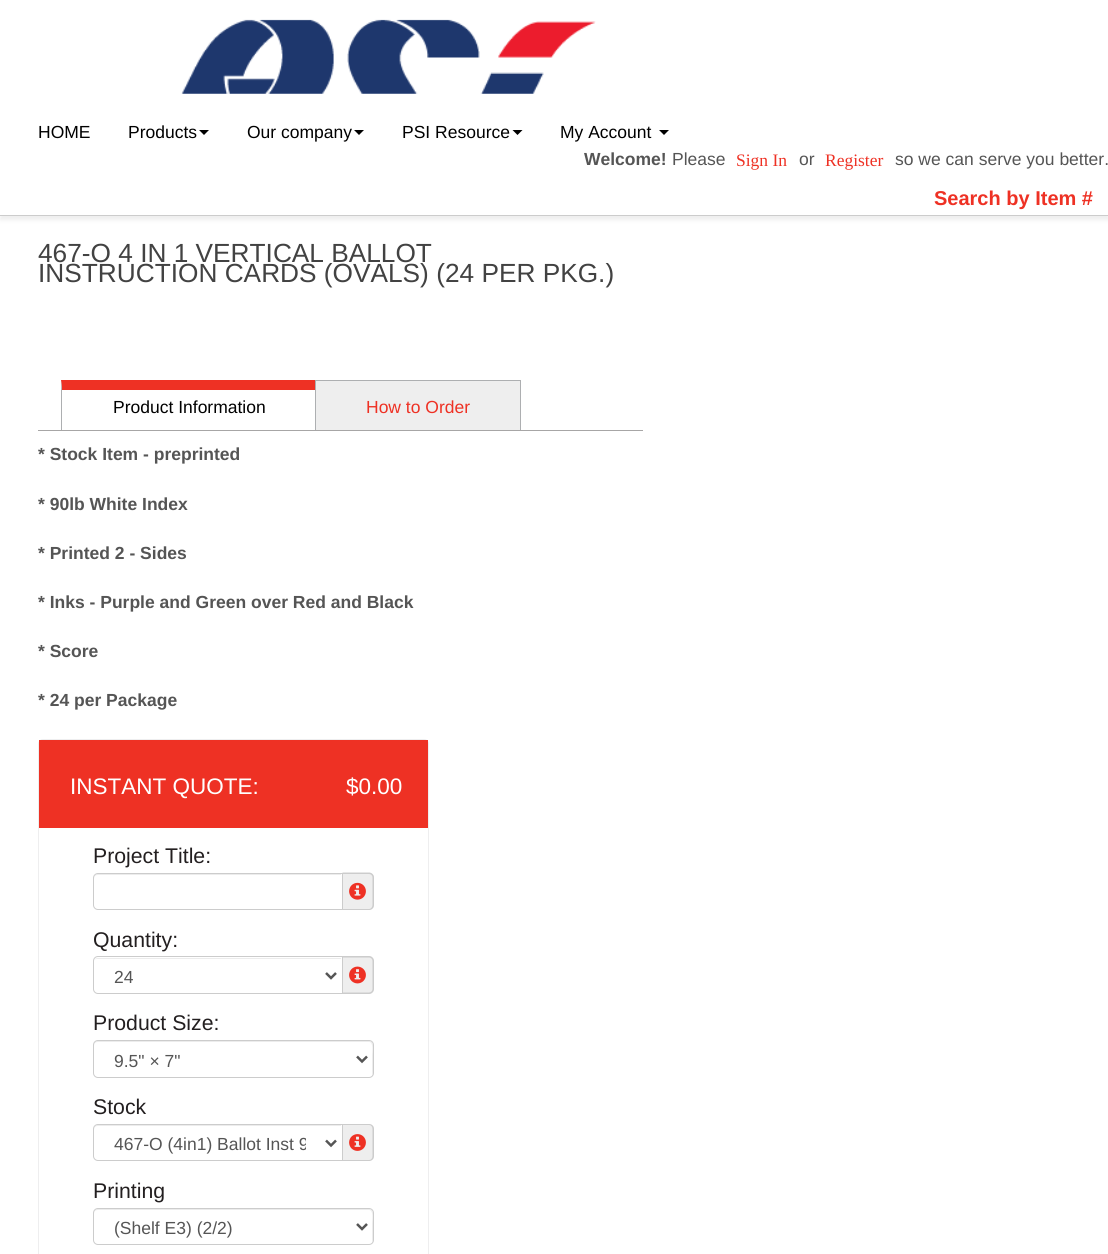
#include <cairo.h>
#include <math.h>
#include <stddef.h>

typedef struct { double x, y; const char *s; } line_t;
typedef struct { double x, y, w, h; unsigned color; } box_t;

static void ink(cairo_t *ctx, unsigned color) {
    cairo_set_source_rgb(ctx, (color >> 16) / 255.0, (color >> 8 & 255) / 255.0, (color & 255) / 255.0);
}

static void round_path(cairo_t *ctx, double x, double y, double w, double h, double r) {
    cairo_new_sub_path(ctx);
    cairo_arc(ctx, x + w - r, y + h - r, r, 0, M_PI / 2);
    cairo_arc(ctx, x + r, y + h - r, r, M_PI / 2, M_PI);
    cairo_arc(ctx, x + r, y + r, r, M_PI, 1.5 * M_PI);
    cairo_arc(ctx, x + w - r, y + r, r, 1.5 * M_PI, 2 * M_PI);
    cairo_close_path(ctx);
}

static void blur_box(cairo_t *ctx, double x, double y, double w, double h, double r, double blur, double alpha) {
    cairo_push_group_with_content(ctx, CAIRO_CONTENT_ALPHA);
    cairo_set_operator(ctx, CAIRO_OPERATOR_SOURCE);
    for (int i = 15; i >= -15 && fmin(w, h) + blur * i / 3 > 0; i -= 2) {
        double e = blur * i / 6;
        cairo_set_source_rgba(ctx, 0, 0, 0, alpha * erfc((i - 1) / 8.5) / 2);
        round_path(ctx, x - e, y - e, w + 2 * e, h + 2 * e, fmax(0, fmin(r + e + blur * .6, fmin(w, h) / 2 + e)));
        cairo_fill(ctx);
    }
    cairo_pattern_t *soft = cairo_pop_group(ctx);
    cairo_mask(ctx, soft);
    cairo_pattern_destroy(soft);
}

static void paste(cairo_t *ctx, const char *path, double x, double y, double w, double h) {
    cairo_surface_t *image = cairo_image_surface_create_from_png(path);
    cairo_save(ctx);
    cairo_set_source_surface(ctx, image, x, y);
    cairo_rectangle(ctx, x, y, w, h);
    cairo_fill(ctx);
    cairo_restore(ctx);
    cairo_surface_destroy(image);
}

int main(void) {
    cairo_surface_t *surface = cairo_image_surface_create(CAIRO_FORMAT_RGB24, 1108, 1254);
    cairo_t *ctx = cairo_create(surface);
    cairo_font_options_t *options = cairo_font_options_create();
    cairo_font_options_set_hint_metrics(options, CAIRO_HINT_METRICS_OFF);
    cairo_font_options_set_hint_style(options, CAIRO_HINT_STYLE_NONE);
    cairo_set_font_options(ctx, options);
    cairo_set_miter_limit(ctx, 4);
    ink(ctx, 0xFFFFFF);
    cairo_paint(ctx);
    cairo_save(ctx);
    cairo_rectangle(ctx, 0, 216, 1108, 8);
    cairo_clip(ctx);
    ink(ctx, 0xEEEEEE);
    blur_box(ctx, 0, 4, 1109, 216, 0, 2, 1);
    cairo_restore(ctx);
    ink(ctx, 0xCCCCCC);
    cairo_rectangle(ctx, 0, 215, 1108, 1);
    cairo_fill(ctx);
    paste(ctx, "media/1.png", 181, 19, 415, 75);
    cairo_select_font_face(ctx, "Liberation Sans", CAIRO_FONT_SLANT_NORMAL, CAIRO_FONT_WEIGHT_NORMAL);
    cairo_set_font_size(ctx, 17.5);
    ink(ctx, 0x000000);
    cairo_move_to(ctx, 38, 138);
    cairo_show_text(ctx, "HOME");
    cairo_move_to(ctx, 128, 138);
    cairo_show_text(ctx, "Products");
    cairo_new_path(ctx);
    cairo_move_to(ctx, 199, 130);
    cairo_line_to(ctx, 209, 130);
    cairo_line_to(ctx, 204, 135);
    cairo_close_path(ctx);
    cairo_fill(ctx);
    cairo_move_to(ctx, 247, 138);
    cairo_show_text(ctx, "Our company");
    cairo_new_path(ctx);
    cairo_move_to(ctx, 354, 130);
    cairo_line_to(ctx, 364, 130);
    cairo_line_to(ctx, 359, 135);
    cairo_close_path(ctx);
    cairo_fill(ctx);
    cairo_move_to(ctx, 402, 138);
    cairo_show_text(ctx, "PSI Resource");
    cairo_new_path(ctx);
    cairo_move_to(ctx, 512.5, 130);
    cairo_line_to(ctx, 522.5, 130);
    cairo_line_to(ctx, 517.5, 135);
    cairo_close_path(ctx);
    cairo_fill(ctx);
    cairo_move_to(ctx, 560, 138);
    cairo_show_text(ctx, "My Account");
    cairo_new_path(ctx);
    cairo_move_to(ctx, 659, 130);
    cairo_line_to(ctx, 669, 130);
    cairo_line_to(ctx, 664, 135);
    cairo_close_path(ctx);
    cairo_fill(ctx);
    cairo_select_font_face(ctx, "Liberation Sans", CAIRO_FONT_SLANT_NORMAL, CAIRO_FONT_WEIGHT_BOLD);
    ink(ctx, 0x555555);
    cairo_move_to(ctx, 584, 165);
    cairo_show_text(ctx, "Welcome!");
    cairo_select_font_face(ctx, "Liberation Sans", CAIRO_FONT_SLANT_NORMAL, CAIRO_FONT_WEIGHT_NORMAL);
    cairo_move_to(ctx, 672, 165);
    cairo_show_text(ctx, "Please");
    cairo_select_font_face(ctx, "Liberation Serif", CAIRO_FONT_SLANT_NORMAL, CAIRO_FONT_WEIGHT_NORMAL);
    ink(ctx, 0xEE3124);
    cairo_move_to(ctx, 736, 166);
    cairo_show_text(ctx, "Sign In");
    cairo_select_font_face(ctx, "Liberation Sans", CAIRO_FONT_SLANT_NORMAL, CAIRO_FONT_WEIGHT_NORMAL);
    ink(ctx, 0x555555);
    cairo_move_to(ctx, 799, 165);
    cairo_show_text(ctx, "or");
    cairo_select_font_face(ctx, "Liberation Serif", CAIRO_FONT_SLANT_NORMAL, CAIRO_FONT_WEIGHT_NORMAL);
    ink(ctx, 0xEE3124);
    cairo_move_to(ctx, 825, 166);
    cairo_show_text(ctx, "Register");
    cairo_select_font_face(ctx, "Liberation Sans", CAIRO_FONT_SLANT_NORMAL, CAIRO_FONT_WEIGHT_NORMAL);
    ink(ctx, 0x555555);
    cairo_move_to(ctx, 895, 165);
    cairo_show_text(ctx, "so we can serve you better.");
    cairo_select_font_face(ctx, "Liberation Sans", CAIRO_FONT_SLANT_NORMAL, CAIRO_FONT_WEIGHT_BOLD);
    cairo_set_font_size(ctx, 20);
    ink(ctx, 0xEE3124);
    cairo_move_to(ctx, 934, 205);
    cairo_show_text(ctx, "Search by Item #");
    cairo_select_font_face(ctx, "Liberation Sans", CAIRO_FONT_SLANT_NORMAL, CAIRO_FONT_WEIGHT_NORMAL);
    cairo_set_font_size(ctx, 26.25);
    ink(ctx, 0x424242);
    cairo_move_to(ctx, 38, 262);
    cairo_show_text(ctx, "467-O 4 IN 1 VERTICAL BALLOT");
    cairo_move_to(ctx, 38, 282);
    cairo_show_text(ctx, "INSTRUCTION CARDS (OVALS) (24 PER PKG.)");
    ink(ctx, 0xEE3124);
    cairo_new_path(ctx);
    cairo_move_to(ctx, 61, 380);
    cairo_line_to(ctx, 316, 380);
    cairo_line_to(ctx, 315, 390);
    cairo_line_to(ctx, 62, 390);
    cairo_close_path(ctx);
    cairo_fill(ctx);
    ink(ctx, 0xADAFB1);
    cairo_new_path(ctx);
    cairo_move_to(ctx, 61, 430);
    cairo_line_to(ctx, 61, 380);
    cairo_line_to(ctx, 62, 390);
    cairo_line_to(ctx, 62, 430);
    cairo_close_path(ctx);
    cairo_fill(ctx);
    cairo_set_font_size(ctx, 17.5);
    ink(ctx, 0x000000);
    cairo_move_to(ctx, 113, 413);
    cairo_show_text(ctx, "Product Information");
    {
        static const box_t items[] = {
            {316, 381, 204, 49, 0xEEEEEE},
            {315, 380, 206, 1, 0xADAFB1},
            {520, 380, 1, 50, 0xADAFB1},
            {315, 380, 1, 50, 0xADAFB1},
        };
        for (size_t i = 0; i < sizeof items / sizeof *items; i++) {
            ink(ctx, items[i].color);
            cairo_rectangle(ctx, items[i].x, items[i].y, items[i].w, items[i].h);
            cairo_fill(ctx);
        }
    }
    ink(ctx, 0xEE3124);
    cairo_move_to(ctx, 366, 413);
    cairo_show_text(ctx, "How to Order");
    ink(ctx, 0xA7A6A6);
    cairo_rectangle(ctx, 38, 430, 605, 1);
    cairo_fill(ctx);
    cairo_select_font_face(ctx, "Liberation Sans", CAIRO_FONT_SLANT_NORMAL, CAIRO_FONT_WEIGHT_BOLD);
    ink(ctx, 0x555555);
    {
        static const line_t items[] = {
            {38, 460, "* Stock Item - preprinted"},
            {38, 510, "* 90lb White Index"},
            {38, 559, "* Printed 2 - Sides"},
            {38, 608, "* Inks - Purple and Green over Red and Black"},
            {38, 657, "* Score"},
            {38, 706, "* 24 per Package"},
        };
        for (size_t i = 0; i < sizeof items / sizeof *items; i++) {
            cairo_move_to(ctx, items[i].x, items[i].y);
            cairo_show_text(ctx, items[i].s);
        }
    }
    round_path(ctx, 38.5, 739.5, 390, 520, 4.5);
    ink(ctx, 0xEEEEEF);
    cairo_set_line_width(ctx, 1);
    cairo_stroke(ctx);
    ink(ctx, 0xEE3124);
    cairo_rectangle(ctx, 39, 740, 389, 88);
    cairo_fill(ctx);
    cairo_select_font_face(ctx, "Liberation Sans", CAIRO_FONT_SLANT_NORMAL, CAIRO_FONT_WEIGHT_NORMAL);
    cairo_set_font_size(ctx, 22.5);
    ink(ctx, 0xFFFFFF);
    cairo_move_to(ctx, 346, 794);
    cairo_show_text(ctx, "$0.00");
    cairo_set_font_size(ctx, 21.25);
    ink(ctx, 0x231F20);
    cairo_move_to(ctx, 93, 863);
    cairo_show_text(ctx, "Project Title:");
    ink(ctx, 0xEEEEEE);
    cairo_new_path(ctx);
    cairo_move_to(ctx, 343, 873);
    cairo_line_to(ctx, 369, 873);
    cairo_curve_to(ctx, 372, 873, 374, 875, 374, 878);
    cairo_line_to(ctx, 374, 905);
    cairo_curve_to(ctx, 374, 908, 372, 910, 369, 910);
    cairo_line_to(ctx, 343, 910);
    cairo_close_path(ctx);
    cairo_fill(ctx);
    ink(ctx, 0xCCCCCC);
    cairo_set_fill_rule(ctx, CAIRO_FILL_RULE_EVEN_ODD);
    cairo_new_path(ctx);
    cairo_move_to(ctx, 342.5, 872.5);
    cairo_line_to(ctx, 369, 872.5);
    cairo_curve_to(ctx, 371.5, 872.5, 374, 874.5, 374, 877.5);
    cairo_line_to(ctx, 374, 905);
    cairo_curve_to(ctx, 374, 908, 371.5, 910, 369, 910);
    cairo_line_to(ctx, 342.5, 910);
    cairo_close_path(ctx);
    cairo_move_to(ctx, 342.5, 874);
    cairo_line_to(ctx, 369, 874);
    cairo_curve_to(ctx, 371, 874, 372.5, 875.5, 372.5, 877.5);
    cairo_line_to(ctx, 372.5, 905);
    cairo_curve_to(ctx, 372.5, 907, 371, 909, 369, 909);
    cairo_line_to(ctx, 342.5, 909);
    cairo_close_path(ctx);
    cairo_fill(ctx);
    ink(ctx, 0xFFFFFF);
    cairo_new_path(ctx);
    cairo_move_to(ctx, 98, 873);
    cairo_line_to(ctx, 343, 873);
    cairo_line_to(ctx, 343, 910);
    cairo_line_to(ctx, 98, 910);
    cairo_curve_to(ctx, 95, 910, 93, 908, 93, 905);
    cairo_line_to(ctx, 93, 878);
    cairo_curve_to(ctx, 93, 875, 95, 873, 98, 873);
    cairo_close_path(ctx);
    cairo_fill(ctx);
    ink(ctx, 0xECECEC);
    cairo_set_fill_rule(ctx, CAIRO_FILL_RULE_WINDING);
    cairo_new_path(ctx);
    cairo_move_to(ctx, 98, 875);
    cairo_line_to(ctx, 341, 875);
    cairo_line_to(ctx, 341, 874);
    cairo_line_to(ctx, 98, 874);
    cairo_curve_to(ctx, 96, 874, 94, 876, 94, 878);
    cairo_line_to(ctx, 94, 879);
    cairo_curve_to(ctx, 94, 877, 95, 875, 98, 875);
    cairo_close_path(ctx);
    cairo_fill(ctx);
    cairo_new_path(ctx);
    cairo_move_to(ctx, 98, 873.5);
    cairo_line_to(ctx, 342.5, 873.5);
    cairo_line_to(ctx, 342.5, 909.5);
    cairo_line_to(ctx, 98, 909.5);
    cairo_curve_to(ctx, 95.5, 909.5, 93.5, 907.5, 93.5, 905);
    cairo_line_to(ctx, 93.5, 878);
    cairo_curve_to(ctx, 93.5, 875.5, 95.5, 873.5, 98, 873.5);
    cairo_close_path(ctx);
    ink(ctx, 0xCCCCCC);
    cairo_stroke(ctx);
    paste(ctx, "media/2.png", 349, 882, 17, 18);
    ink(ctx, 0x231F20);
    cairo_move_to(ctx, 93, 947);
    cairo_show_text(ctx, "Quantity:");
    ink(ctx, 0xEEEEEE);
    cairo_new_path(ctx);
    cairo_move_to(ctx, 343, 956);
    cairo_line_to(ctx, 369, 956);
    cairo_curve_to(ctx, 372, 956, 374, 958, 374, 961);
    cairo_line_to(ctx, 374, 989);
    cairo_curve_to(ctx, 374, 992, 372, 994, 369, 994);
    cairo_line_to(ctx, 343, 994);
    cairo_close_path(ctx);
    cairo_fill(ctx);
    ink(ctx, 0xCCCCCC);
    cairo_set_fill_rule(ctx, CAIRO_FILL_RULE_EVEN_ODD);
    cairo_new_path(ctx);
    cairo_move_to(ctx, 342.5, 956);
    cairo_line_to(ctx, 369, 956);
    cairo_curve_to(ctx, 371.5, 956, 374, 958.5, 374, 961);
    cairo_line_to(ctx, 374, 989);
    cairo_curve_to(ctx, 374, 991.5, 371.5, 994, 369, 994);
    cairo_line_to(ctx, 342.5, 994);
    cairo_close_path(ctx);
    cairo_move_to(ctx, 342.5, 957.5);
    cairo_line_to(ctx, 369, 957.5);
    cairo_curve_to(ctx, 371, 957.5, 372.5, 959, 372.5, 961);
    cairo_line_to(ctx, 372.5, 989);
    cairo_curve_to(ctx, 372.5, 991, 371, 992.5, 369, 992.5);
    cairo_line_to(ctx, 342.5, 992.5);
    cairo_close_path(ctx);
    cairo_fill(ctx);
    ink(ctx, 0xFFFFFF);
    cairo_new_path(ctx);
    cairo_move_to(ctx, 98, 956);
    cairo_line_to(ctx, 343, 956);
    cairo_line_to(ctx, 343, 994);
    cairo_line_to(ctx, 98, 994);
    cairo_curve_to(ctx, 95, 994, 93, 992, 93, 989);
    cairo_line_to(ctx, 93, 961);
    cairo_curve_to(ctx, 93, 958, 95, 956, 98, 956);
    cairo_close_path(ctx);
    cairo_fill(ctx);
    ink(ctx, 0xECECEC);
    cairo_set_fill_rule(ctx, CAIRO_FILL_RULE_WINDING);
    cairo_new_path(ctx);
    cairo_move_to(ctx, 98, 959);
    cairo_line_to(ctx, 341, 959);
    cairo_line_to(ctx, 341, 958);
    cairo_line_to(ctx, 98, 958);
    cairo_curve_to(ctx, 96, 958, 95, 959, 94, 960);
    cairo_curve_to(ctx, 95, 959, 96, 959, 98, 959);
    cairo_close_path(ctx);
    cairo_fill(ctx);
    cairo_new_path(ctx);
    cairo_move_to(ctx, 98, 956.5);
    cairo_line_to(ctx, 342.5, 956.5);
    cairo_line_to(ctx, 342.5, 993.5);
    cairo_line_to(ctx, 98, 993.5);
    cairo_curve_to(ctx, 95.5, 993.5, 93.5, 991.5, 93.5, 989);
    cairo_line_to(ctx, 93.5, 961);
    cairo_curve_to(ctx, 93.5, 958.5, 95.5, 956.5, 98, 956.5);
    cairo_close_path(ctx);
    ink(ctx, 0xCCCCCC);
    cairo_stroke(ctx);
    cairo_new_path(ctx);
    cairo_move_to(ctx, 326, 973);
    cairo_line_to(ctx, 331, 978);
    cairo_line_to(ctx, 336, 973);
    ink(ctx, 0x555555);
    cairo_set_line_width(ctx, 2.5);
    cairo_stroke(ctx);
    cairo_set_font_size(ctx, 17.5);
    cairo_move_to(ctx, 114, 983);
    cairo_show_text(ctx, "24");
    paste(ctx, "media/3.png", 349, 966, 17, 18);
    cairo_set_font_size(ctx, 21.25);
    ink(ctx, 0x231F20);
    cairo_move_to(ctx, 93, 1030);
    cairo_show_text(ctx, "Product Size:");
    ink(ctx, 0xECECEC);
    cairo_new_path(ctx);
    cairo_move_to(ctx, 98, 1042);
    cairo_line_to(ctx, 369, 1042);
    cairo_curve_to(ctx, 374, 1042, 372, 1053, 372, 1055);
    cairo_line_to(ctx, 372, 1075);
    cairo_curve_to(ctx, 373, 1074, 373, 1073, 373, 1072);
    cairo_line_to(ctx, 373, 1045);
    cairo_curve_to(ctx, 373, 1043, 371, 1041, 369, 1041);
    cairo_line_to(ctx, 98, 1041);
    cairo_curve_to(ctx, 96, 1041, 94, 1043, 94, 1045);
    cairo_line_to(ctx, 94, 1046);
    cairo_curve_to(ctx, 94, 1044, 95, 1042, 98, 1042);
    cairo_close_path(ctx);
    cairo_fill(ctx);
    round_path(ctx, 93.5, 1040.5, 280, 37, 4.5);
    ink(ctx, 0xCCCCCC);
    cairo_set_line_width(ctx, 1);
    cairo_stroke(ctx);
    cairo_new_path(ctx);
    cairo_move_to(ctx, 357, 1056.5);
    cairo_line_to(ctx, 362, 1061.5);
    cairo_line_to(ctx, 367, 1056.5);
    ink(ctx, 0x555555);
    cairo_set_line_width(ctx, 2.5);
    cairo_stroke(ctx);
    cairo_set_font_size(ctx, 17.5);
    cairo_move_to(ctx, 114, 1067);
    cairo_show_text(ctx, "9.5\" × 7\"");
    cairo_set_font_size(ctx, 21.25);
    ink(ctx, 0x231F20);
    cairo_move_to(ctx, 93, 1114);
    cairo_show_text(ctx, "Stock");
    ink(ctx, 0xEEEEEE);
    cairo_new_path(ctx);
    cairo_move_to(ctx, 343, 1124);
    cairo_line_to(ctx, 369, 1124);
    cairo_curve_to(ctx, 372, 1124, 374, 1126, 374, 1129);
    cairo_line_to(ctx, 374, 1156);
    cairo_curve_to(ctx, 374, 1159, 372, 1161, 369, 1161);
    cairo_line_to(ctx, 343, 1161);
    cairo_close_path(ctx);
    cairo_fill(ctx);
    ink(ctx, 0xCCCCCC);
    cairo_set_fill_rule(ctx, CAIRO_FILL_RULE_EVEN_ODD);
    cairo_new_path(ctx);
    cairo_move_to(ctx, 342.5, 1124);
    cairo_line_to(ctx, 369, 1124);
    cairo_curve_to(ctx, 371.5, 1124, 374, 1126, 374, 1129);
    cairo_line_to(ctx, 374, 1156);
    cairo_curve_to(ctx, 374, 1159, 371.5, 1161, 369, 1161);
    cairo_line_to(ctx, 342.5, 1161);
    cairo_close_path(ctx);
    cairo_move_to(ctx, 342.5, 1125);
    cairo_line_to(ctx, 369, 1125);
    cairo_curve_to(ctx, 371, 1125, 372.5, 1126.5, 372.5, 1129);
    cairo_line_to(ctx, 372.5, 1156);
    cairo_curve_to(ctx, 372.5, 1158.5, 371, 1160, 369, 1160);
    cairo_line_to(ctx, 342.5, 1160);
    cairo_close_path(ctx);
    cairo_fill(ctx);
    ink(ctx, 0xFFFFFF);
    cairo_new_path(ctx);
    cairo_move_to(ctx, 98, 1124);
    cairo_line_to(ctx, 343, 1124);
    cairo_line_to(ctx, 343, 1161);
    cairo_line_to(ctx, 98, 1161);
    cairo_curve_to(ctx, 95, 1161, 93, 1159, 93, 1156);
    cairo_line_to(ctx, 93, 1129);
    cairo_curve_to(ctx, 93, 1126, 95, 1124, 98, 1124);
    cairo_close_path(ctx);
    cairo_fill(ctx);
    ink(ctx, 0xECECEC);
    cairo_set_fill_rule(ctx, CAIRO_FILL_RULE_WINDING);
    cairo_new_path(ctx);
    cairo_move_to(ctx, 98, 1126);
    cairo_line_to(ctx, 341, 1126);
    cairo_line_to(ctx, 341, 1125);
    cairo_line_to(ctx, 98, 1125);
    cairo_curve_to(ctx, 96, 1125, 94, 1127, 94, 1129);
    cairo_line_to(ctx, 94, 1130);
    cairo_curve_to(ctx, 94, 1128, 95, 1126, 98, 1126);
    cairo_close_path(ctx);
    cairo_fill(ctx);
    cairo_new_path(ctx);
    cairo_move_to(ctx, 98, 1124.5);
    cairo_line_to(ctx, 342.5, 1124.5);
    cairo_line_to(ctx, 342.5, 1160.5);
    cairo_line_to(ctx, 98, 1160.5);
    cairo_curve_to(ctx, 95.5, 1160.5, 93.5, 1158.5, 93.5, 1156);
    cairo_line_to(ctx, 93.5, 1129);
    cairo_curve_to(ctx, 93.5, 1126.5, 95.5, 1124.5, 98, 1124.5);
    cairo_close_path(ctx);
    ink(ctx, 0xCCCCCC);
    cairo_set_line_width(ctx, 1);
    cairo_stroke(ctx);
    cairo_new_path(ctx);
    cairo_move_to(ctx, 326, 1140.5);
    cairo_line_to(ctx, 331, 1145.5);
    cairo_line_to(ctx, 336, 1140.5);
    ink(ctx, 0x555555);
    cairo_set_line_width(ctx, 2.5);
    cairo_stroke(ctx);
    cairo_save(ctx);
    cairo_rectangle(ctx, 114, 1133, 192, 22);
    cairo_clip(ctx);
    cairo_set_font_size(ctx, 17.5);
    cairo_move_to(ctx, 114, 1150);
    cairo_show_text(ctx, "467-O (4in1) Ballot Inst 9");
    cairo_restore(ctx);
    paste(ctx, "media/4.png", 349, 1134, 17, 17);
    ink(ctx, 0x231F20);
    cairo_move_to(ctx, 93, 1198);
    cairo_show_text(ctx, "Printing");
    ink(ctx, 0xECECEC);
    cairo_new_path(ctx);
    cairo_move_to(ctx, 98, 1210);
    cairo_line_to(ctx, 369, 1210);
    cairo_curve_to(ctx, 374, 1210, 372, 1221, 372, 1223);
    cairo_line_to(ctx, 372, 1243);
    cairo_curve_to(ctx, 372, 1242, 373, 1241, 373, 1240);
    cairo_line_to(ctx, 373, 1213);
    cairo_curve_to(ctx, 373, 1211, 371, 1209, 369, 1209);
    cairo_line_to(ctx, 98, 1209);
    cairo_curve_to(ctx, 96, 1209, 94, 1211, 94, 1213);
    cairo_line_to(ctx, 94, 1214);
    cairo_curve_to(ctx, 94, 1212, 95, 1210, 98, 1210);
    cairo_close_path(ctx);
    cairo_fill(ctx);
    round_path(ctx, 93.5, 1208.5, 280, 36, 4.5);
    ink(ctx, 0xCCCCCC);
    cairo_set_line_width(ctx, 1);
    cairo_stroke(ctx);
    cairo_new_path(ctx);
    cairo_move_to(ctx, 357, 1224);
    cairo_line_to(ctx, 362, 1229);
    cairo_line_to(ctx, 367, 1224);
    ink(ctx, 0x555555);
    cairo_set_line_width(ctx, 2.5);
    cairo_stroke(ctx);
    cairo_set_font_size(ctx, 17.5);
    cairo_move_to(ctx, 114, 1234);
    cairo_show_text(ctx, "(Shelf E3) (2/2)");
    cairo_set_font_size(ctx, 22.5);
    ink(ctx, 0xFFFFFF);
    cairo_move_to(ctx, 70, 794);
    cairo_show_text(ctx, "INSTANT QUOTE:");
    cairo_surface_write_to_png(surface, "image.png");
    cairo_font_options_destroy(options);
    cairo_destroy(ctx);
    cairo_surface_destroy(surface);
    return 0;
}
